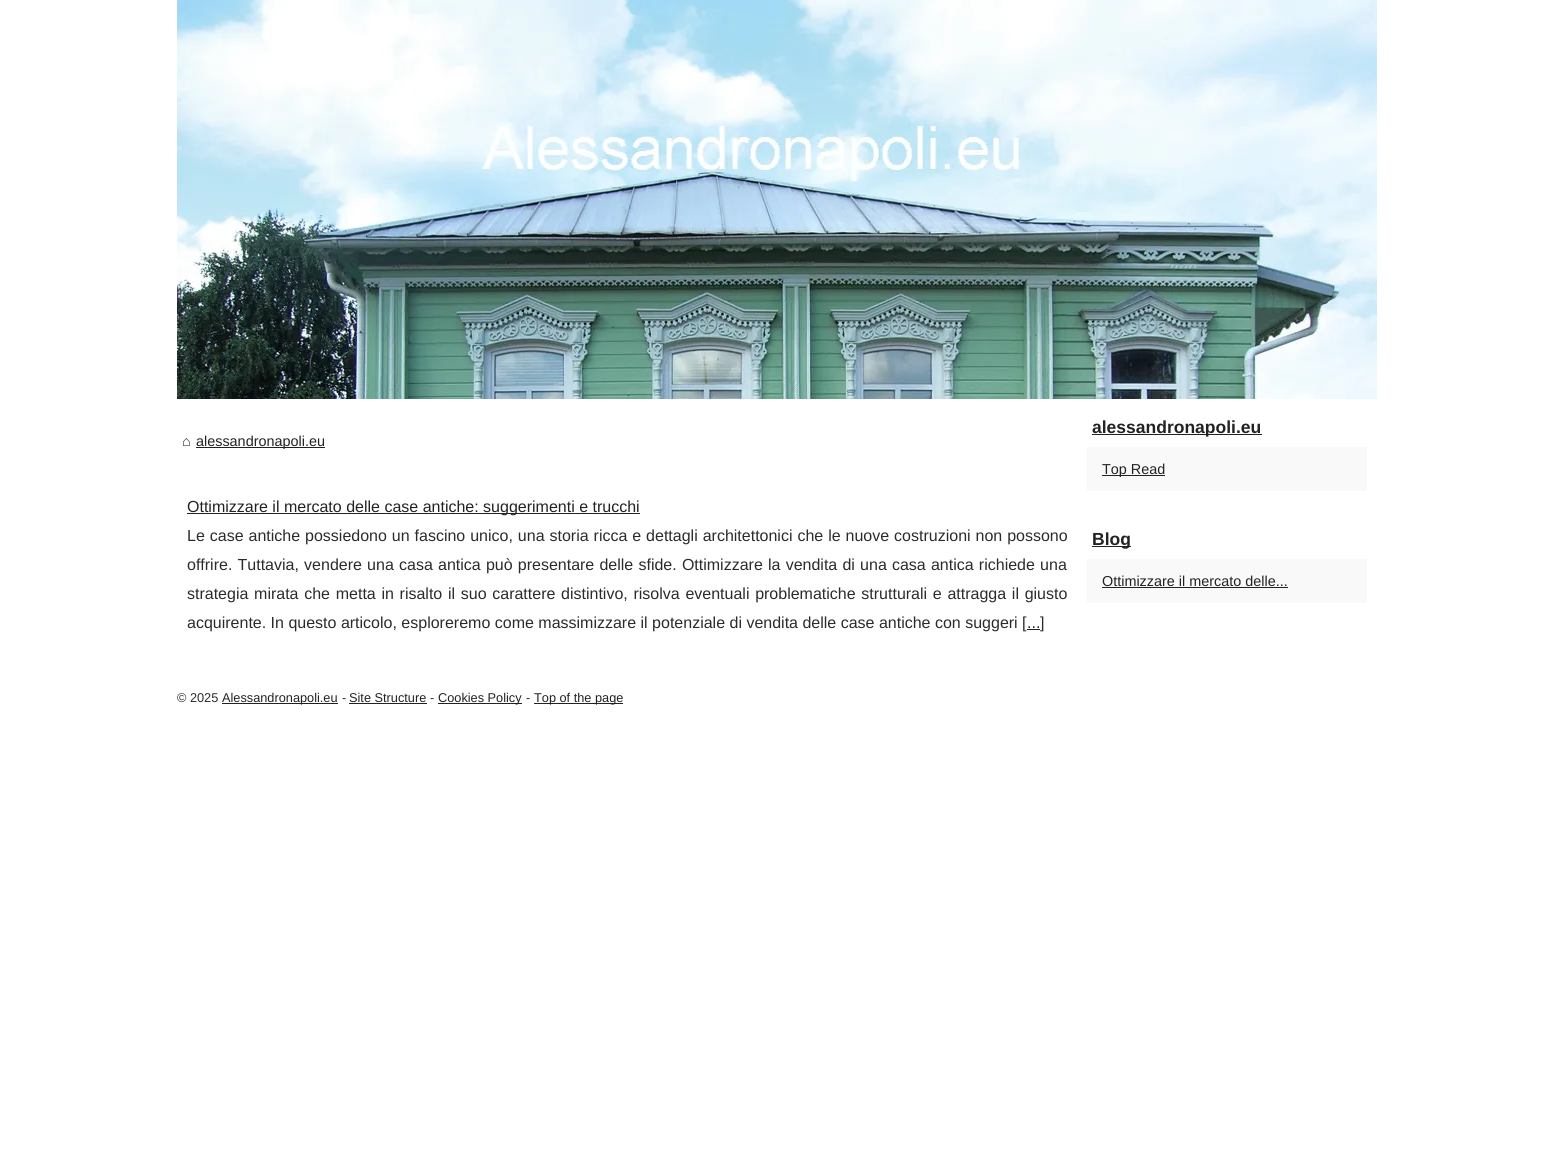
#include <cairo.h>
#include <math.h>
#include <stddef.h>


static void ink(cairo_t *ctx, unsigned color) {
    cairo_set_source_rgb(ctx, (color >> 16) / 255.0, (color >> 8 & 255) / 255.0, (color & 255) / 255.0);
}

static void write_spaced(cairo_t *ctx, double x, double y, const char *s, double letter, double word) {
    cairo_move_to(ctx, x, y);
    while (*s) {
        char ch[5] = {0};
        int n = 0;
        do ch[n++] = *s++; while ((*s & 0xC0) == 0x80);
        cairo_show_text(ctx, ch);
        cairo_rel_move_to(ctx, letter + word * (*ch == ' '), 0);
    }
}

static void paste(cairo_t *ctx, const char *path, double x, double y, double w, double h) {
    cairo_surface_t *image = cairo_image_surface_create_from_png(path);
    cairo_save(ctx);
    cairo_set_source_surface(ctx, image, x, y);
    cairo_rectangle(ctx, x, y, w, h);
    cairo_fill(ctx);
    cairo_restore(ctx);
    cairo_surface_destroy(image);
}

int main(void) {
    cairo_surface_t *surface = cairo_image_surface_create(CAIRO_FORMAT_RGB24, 1554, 1154);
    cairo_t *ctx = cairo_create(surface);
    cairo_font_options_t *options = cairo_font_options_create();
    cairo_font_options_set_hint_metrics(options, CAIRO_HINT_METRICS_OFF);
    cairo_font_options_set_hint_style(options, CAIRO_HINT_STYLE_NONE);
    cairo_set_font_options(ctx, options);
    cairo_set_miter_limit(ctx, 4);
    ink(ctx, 0xFFFFFF);
    cairo_paint(ctx);
    paste(ctx, "media/1.png", 177, 0, 1200, 399);
    cairo_select_font_face(ctx, "Liberation Sans", CAIRO_FONT_SLANT_NORMAL, CAIRO_FONT_WEIGHT_NORMAL);
    cairo_set_font_size(ctx, 14.4);
    ink(ctx, 0x2B2B2B);
    cairo_move_to(ctx, 182, 446);
    cairo_show_text(ctx, "⌂");
    ink(ctx, 0x222222);
    cairo_rectangle(ctx, 196, 447, 129, 1);
    cairo_fill(ctx);
    cairo_move_to(ctx, 196, 446);
    cairo_show_text(ctx, "alessandronapoli.eu");
    cairo_rectangle(ctx, 187, 513, 453, 1);
    cairo_fill(ctx);
    cairo_set_font_size(ctx, 16);
    cairo_move_to(ctx, 187, 512);
    cairo_show_text(ctx, "Ottimizzare il mercato delle case antiche: suggerimenti e trucchi");
    ink(ctx, 0x2B2B2B);
    write_spaced(ctx, 187, 541, "Le case antiche possiedono un fascino unico, una storia ricca e dettagli architettonici che le nuove costruzioni non possono", 0, 0.5);
    write_spaced(ctx, 187, 570, "offrire. Tuttavia, vendere una casa antica può presentare delle sfide. Ottimizzare la vendita di una casa antica richiede una", 0, 0.75);
    write_spaced(ctx, 187, 599, "strategia mirata che metta in risalto il suo carattere distintivo, risolva eventuali problematiche strutturali e attragga il giusto", 0, 1.25);
    cairo_move_to(ctx, 187, 628);
    cairo_show_text(ctx, "acquirente. In questo articolo, esploreremo come massimizzare il potenziale di vendita delle case antiche con suggeri [");
    ink(ctx, 0x222222);
    cairo_move_to(ctx, 1027, 628);
    cairo_show_text(ctx, "...");
    cairo_rectangle(ctx, 1027, 629, 13, 1);
    cairo_fill(ctx);
    ink(ctx, 0x2B2B2B);
    cairo_move_to(ctx, 1040, 628);
    cairo_show_text(ctx, "]");
    ink(ctx, 0x222222);
    cairo_rectangle(ctx, 1092, 434, 170, 1);
    cairo_fill(ctx);
    cairo_select_font_face(ctx, "Liberation Sans", CAIRO_FONT_SLANT_NORMAL, CAIRO_FONT_WEIGHT_BOLD);
    cairo_set_font_size(ctx, 17.5);
    cairo_move_to(ctx, 1092, 433);
    cairo_show_text(ctx, "alessandronapoli.eu");
    ink(ctx, 0xF9F9F9);
    cairo_rectangle(ctx, 1087, 447, 280, 44);
    cairo_fill(ctx);
    ink(ctx, 0x222222);
    cairo_rectangle(ctx, 1102, 475, 63, 1);
    cairo_fill(ctx);
    cairo_select_font_face(ctx, "Liberation Sans", CAIRO_FONT_SLANT_NORMAL, CAIRO_FONT_WEIGHT_NORMAL);
    cairo_set_font_size(ctx, 14.4);
    cairo_move_to(ctx, 1102, 474);
    cairo_show_text(ctx, "Top Read");
    cairo_rectangle(ctx, 1092, 546, 39, 1);
    cairo_fill(ctx);
    cairo_select_font_face(ctx, "Liberation Sans", CAIRO_FONT_SLANT_NORMAL, CAIRO_FONT_WEIGHT_BOLD);
    cairo_set_font_size(ctx, 17.5);
    cairo_move_to(ctx, 1092, 545);
    cairo_show_text(ctx, "Blog");
    ink(ctx, 0xF9F9F9);
    cairo_rectangle(ctx, 1087, 559, 280, 44);
    cairo_fill(ctx);
    cairo_select_font_face(ctx, "Liberation Sans", CAIRO_FONT_SLANT_NORMAL, CAIRO_FONT_WEIGHT_NORMAL);
    cairo_set_font_size(ctx, 14.4);
    ink(ctx, 0x222222);
    cairo_move_to(ctx, 1102, 586);
    cairo_show_text(ctx, "Ottimizzare il mercato delle...");
    cairo_rectangle(ctx, 1102, 587, 186, 1);
    cairo_fill(ctx);
    cairo_set_font_size(ctx, 12.75);
    ink(ctx, 0x2B2B2B);
    cairo_move_to(ctx, 177, 702);
    cairo_show_text(ctx, "© 2025");
    ink(ctx, 0x222222);
    cairo_rectangle(ctx, 222, 703, 116, 1);
    cairo_fill(ctx);
    cairo_move_to(ctx, 222, 702);
    cairo_show_text(ctx, "Alessandronapoli.eu");
    ink(ctx, 0x2B2B2B);
    cairo_move_to(ctx, 342, 702);
    cairo_show_text(ctx, "-");
    ink(ctx, 0x222222);
    cairo_move_to(ctx, 349, 702);
    cairo_show_text(ctx, "Site Structure");
    cairo_rectangle(ctx, 349, 703, 78, 1);
    cairo_fill(ctx);
    ink(ctx, 0x2B2B2B);
    cairo_move_to(ctx, 430, 702);
    cairo_show_text(ctx, "-");
    ink(ctx, 0x222222);
    cairo_rectangle(ctx, 438, 703, 84, 1);
    cairo_fill(ctx);
    cairo_move_to(ctx, 438, 702);
    cairo_show_text(ctx, "Cookies Policy");
    ink(ctx, 0x2B2B2B);
    cairo_move_to(ctx, 526, 702);
    cairo_show_text(ctx, "-");
    ink(ctx, 0x222222);
    cairo_rectangle(ctx, 534, 703, 89, 1);
    cairo_fill(ctx);
    cairo_move_to(ctx, 534, 702);
    cairo_show_text(ctx, "Top of the page");
    cairo_surface_write_to_png(surface, "image.png");
    cairo_font_options_destroy(options);
    cairo_destroy(ctx);
    cairo_surface_destroy(surface);
    return 0;
}
